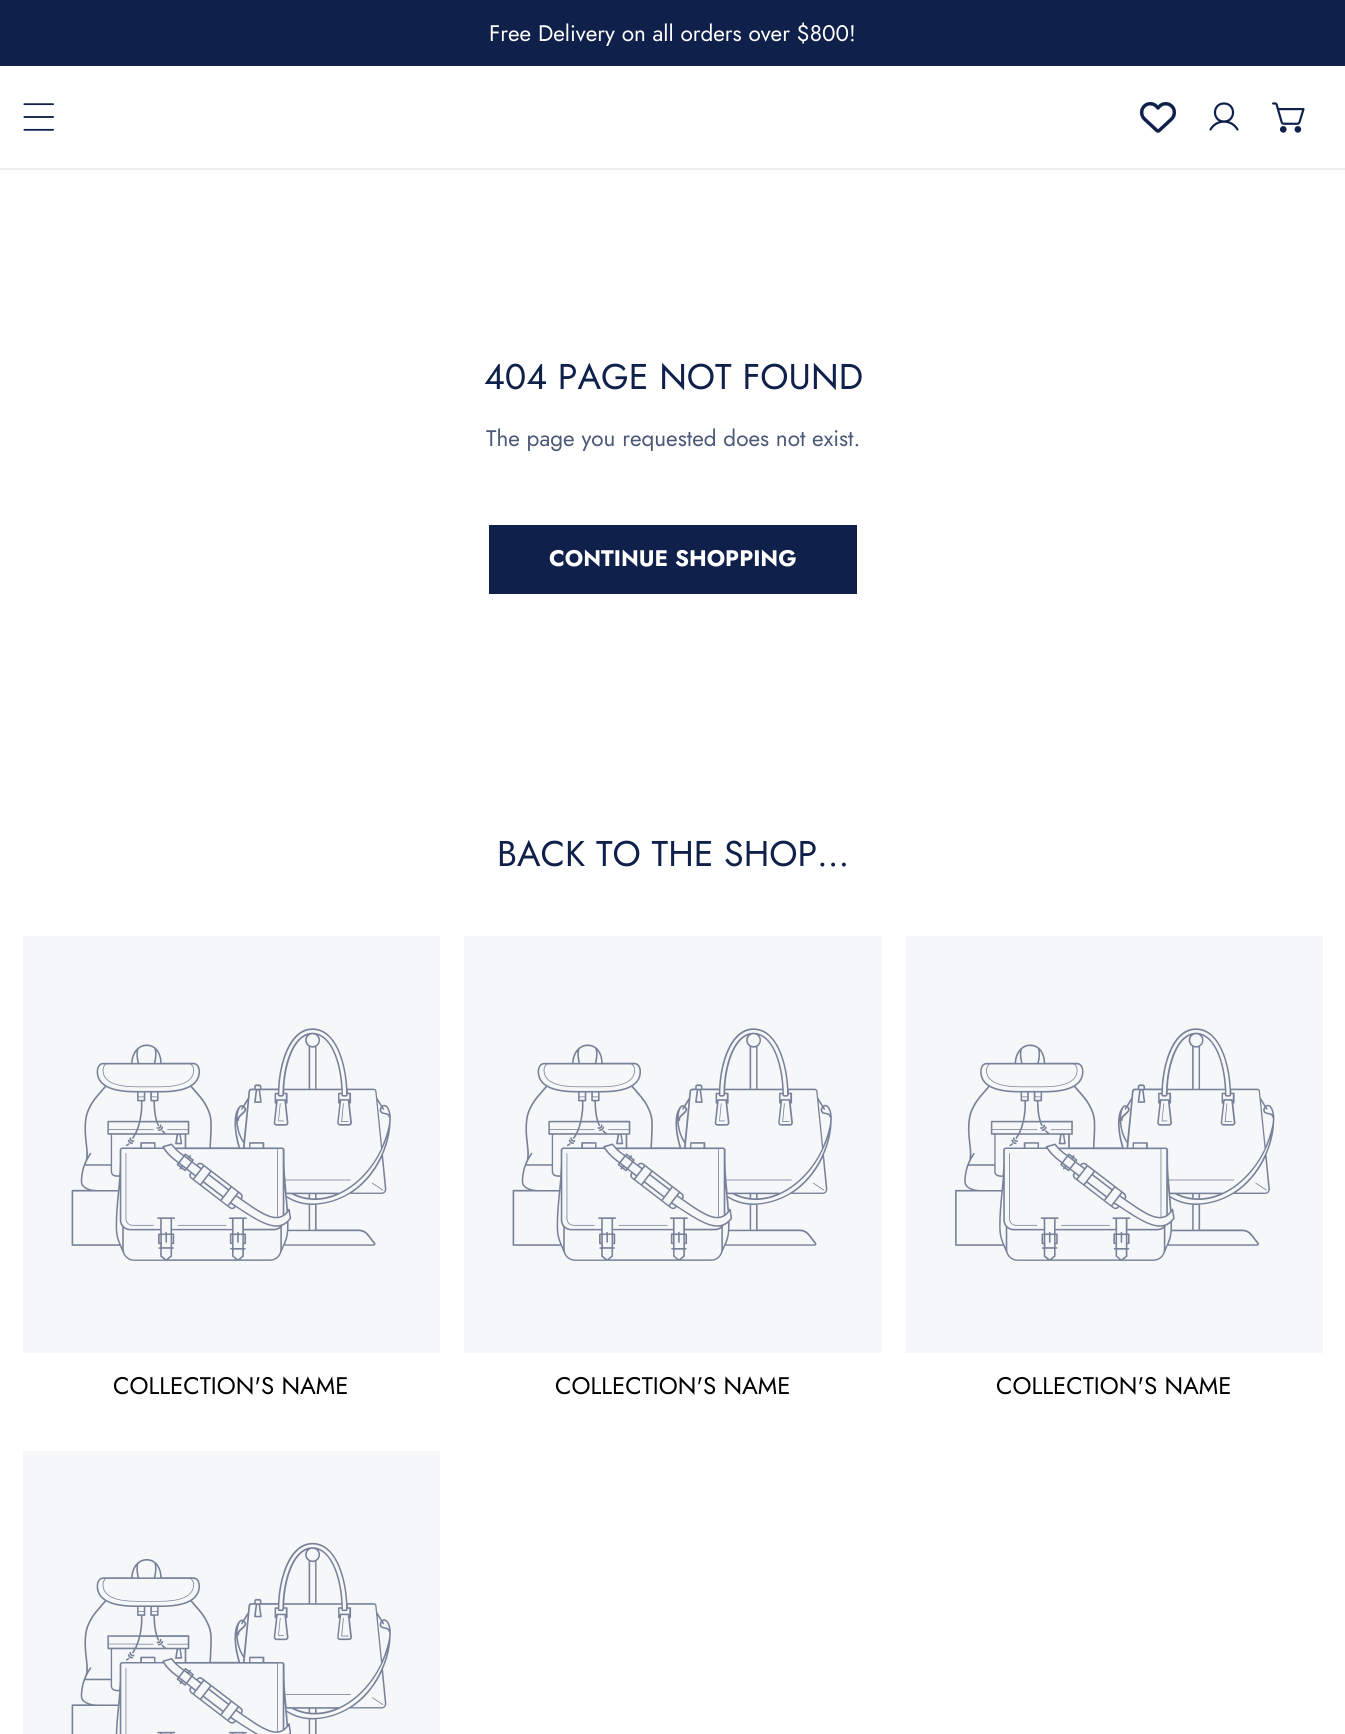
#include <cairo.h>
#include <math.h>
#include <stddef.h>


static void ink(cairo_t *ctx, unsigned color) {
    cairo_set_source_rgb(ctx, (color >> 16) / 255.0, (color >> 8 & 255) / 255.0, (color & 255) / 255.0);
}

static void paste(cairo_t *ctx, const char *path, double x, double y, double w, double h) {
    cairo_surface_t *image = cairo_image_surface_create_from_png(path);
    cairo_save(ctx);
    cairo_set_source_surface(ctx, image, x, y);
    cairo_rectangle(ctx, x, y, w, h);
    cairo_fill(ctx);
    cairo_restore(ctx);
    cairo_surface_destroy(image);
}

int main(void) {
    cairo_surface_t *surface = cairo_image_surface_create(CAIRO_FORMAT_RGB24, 1345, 1734);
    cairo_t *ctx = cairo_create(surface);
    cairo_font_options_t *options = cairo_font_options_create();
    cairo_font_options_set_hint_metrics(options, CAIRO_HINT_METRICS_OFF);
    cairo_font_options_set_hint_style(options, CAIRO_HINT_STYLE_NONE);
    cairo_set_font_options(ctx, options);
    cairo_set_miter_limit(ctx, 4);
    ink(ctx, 0xFFFFFF);
    cairo_paint(ctx);
    ink(ctx, 0x0F204A);
    cairo_rectangle(ctx, 0, 0, 1345, 66);
    cairo_fill(ctx);
    cairo_select_font_face(ctx, "Jost", CAIRO_FONT_SLANT_NORMAL, CAIRO_FONT_WEIGHT_NORMAL);
    cairo_set_font_size(ctx, 22.5);
    ink(ctx, 0xFFFFFF);
    cairo_move_to(ctx, 489, 41);
    cairo_show_text(ctx, "Free Delivery on all orders over $800!");
    ink(ctx, 0xEEEEEE);
    cairo_rectangle(ctx, 0, 168, 1345, 2);
    cairo_fill(ctx);
    paste(ctx, "media/1.png", 23, 103, 31, 28);
    paste(ctx, "media/2.png", 1140, 102, 36, 31);
    cairo_new_path(ctx);
    cairo_move_to(ctx, 1224, 121.5);
    cairo_curve_to(ctx, 1236, 121.5, 1236, 103.5, 1224, 103.5);
    cairo_curve_to(ctx, 1212, 103.5, 1212, 121.5, 1224, 121.5);
    cairo_close_path(ctx);
    cairo_move_to(ctx, 1210.5, 129.5);
    cairo_curve_to(ctx, 1216.5, 119, 1231.5, 119, 1237.5, 129.5);
    ink(ctx, 0x0F204A);
    cairo_set_line_width(ctx, 2.2);
    cairo_set_line_cap(ctx, CAIRO_LINE_CAP_ROUND);
    cairo_set_line_join(ctx, CAIRO_LINE_JOIN_ROUND);
    cairo_stroke(ctx);
    paste(ctx, "media/3.png", 1272, 102, 33, 31);
    cairo_set_font_size(ctx, 35.75);
    cairo_move_to(ctx, 484, 389);
    cairo_show_text(ctx, "404 PAGE NOT FOUND");
    cairo_set_font_size(ctx, 22.5);
    ink(ctx, 0x4B5877);
    cairo_move_to(ctx, 486, 446);
    cairo_show_text(ctx, "The page you requested does not exist.");
    ink(ctx, 0x0F204A);
    cairo_rectangle(ctx, 489, 525, 368, 69);
    cairo_fill(ctx);
    cairo_select_font_face(ctx, "Jost", CAIRO_FONT_SLANT_NORMAL, CAIRO_FONT_WEIGHT_BOLD);
    ink(ctx, 0xFFFFFF);
    cairo_move_to(ctx, 549, 566);
    cairo_show_text(ctx, "CONTINUE SHOPPING");
    cairo_select_font_face(ctx, "Jost", CAIRO_FONT_SLANT_NORMAL, CAIRO_FONT_WEIGHT_NORMAL);
    cairo_set_font_size(ctx, 35.75);
    ink(ctx, 0x0F204A);
    cairo_move_to(ctx, 497, 866);
    cairo_show_text(ctx, "BACK TO THE SHOP...");
    ink(ctx, 0xF6F7F8);
    cairo_rectangle(ctx, 23, 936, 417, 417);
    cairo_fill(ctx);
    paste(ctx, "media/4.png", 71, 1028, 320, 233);
    cairo_set_font_size(ctx, 24);
    ink(ctx, 0x000000);
    cairo_move_to(ctx, 113, 1394);
    cairo_show_text(ctx, "COLLECTION'S NAME");
    ink(ctx, 0xF6F7F8);
    cairo_rectangle(ctx, 464, 936, 418, 417);
    cairo_fill(ctx);
    paste(ctx, "media/4.png", 512, 1028, 320, 233);
    ink(ctx, 0x000000);
    cairo_move_to(ctx, 555, 1394);
    cairo_show_text(ctx, "COLLECTION'S NAME");
    ink(ctx, 0xF6F7F8);
    cairo_rectangle(ctx, 906, 936, 417, 417);
    cairo_fill(ctx);
    paste(ctx, "media/5.png", 955, 1028, 320, 233);
    ink(ctx, 0x000000);
    cairo_move_to(ctx, 996, 1394);
    cairo_show_text(ctx, "COLLECTION'S NAME");
    ink(ctx, 0xF6F7F8);
    cairo_rectangle(ctx, 23, 1451, 417, 283);
    cairo_fill(ctx);
    paste(ctx, "media/6.png", 71, 1542, 320, 192);
    cairo_surface_write_to_png(surface, "image.png");
    cairo_font_options_destroy(options);
    cairo_destroy(ctx);
    cairo_surface_destroy(surface);
    return 0;
}
